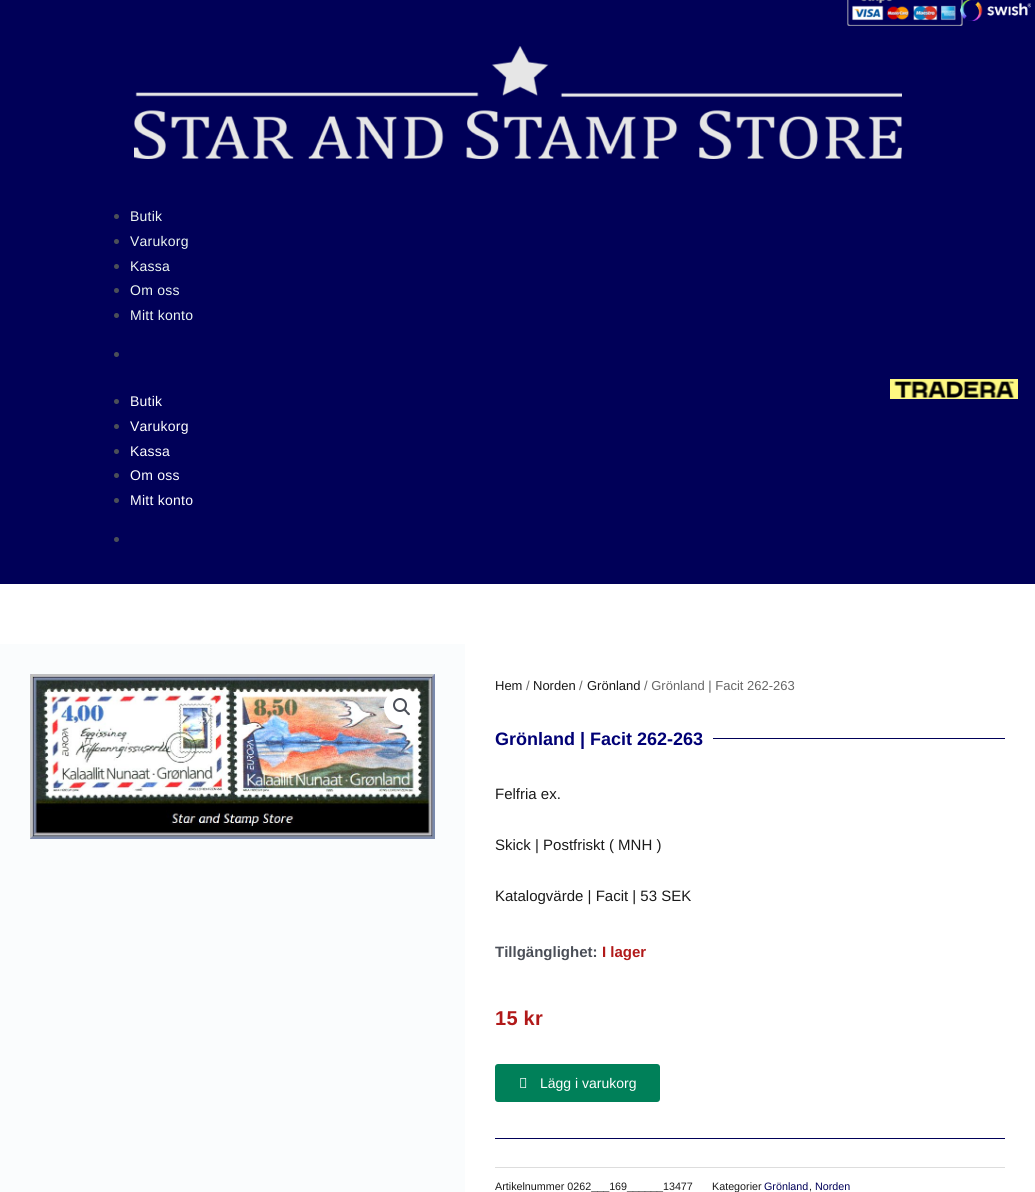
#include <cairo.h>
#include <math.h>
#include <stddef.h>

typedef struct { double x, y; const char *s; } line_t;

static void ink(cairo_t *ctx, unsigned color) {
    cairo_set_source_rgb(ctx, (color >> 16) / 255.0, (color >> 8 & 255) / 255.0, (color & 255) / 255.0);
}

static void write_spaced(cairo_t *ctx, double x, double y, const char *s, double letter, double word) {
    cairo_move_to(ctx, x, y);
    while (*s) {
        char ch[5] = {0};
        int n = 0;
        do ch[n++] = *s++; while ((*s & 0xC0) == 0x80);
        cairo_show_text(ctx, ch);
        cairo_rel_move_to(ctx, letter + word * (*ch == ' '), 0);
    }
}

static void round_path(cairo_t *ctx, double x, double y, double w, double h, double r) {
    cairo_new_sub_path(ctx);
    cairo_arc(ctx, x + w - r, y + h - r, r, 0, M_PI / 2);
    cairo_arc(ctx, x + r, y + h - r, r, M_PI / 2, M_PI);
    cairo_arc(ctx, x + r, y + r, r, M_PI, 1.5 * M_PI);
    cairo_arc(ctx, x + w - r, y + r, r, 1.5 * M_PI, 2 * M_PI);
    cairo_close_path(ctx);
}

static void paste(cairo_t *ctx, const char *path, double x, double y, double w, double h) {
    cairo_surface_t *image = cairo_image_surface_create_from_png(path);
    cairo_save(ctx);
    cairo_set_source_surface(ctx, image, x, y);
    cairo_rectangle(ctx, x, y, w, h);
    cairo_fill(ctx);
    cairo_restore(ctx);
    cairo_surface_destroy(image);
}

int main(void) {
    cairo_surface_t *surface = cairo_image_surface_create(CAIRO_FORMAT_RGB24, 1035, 1192);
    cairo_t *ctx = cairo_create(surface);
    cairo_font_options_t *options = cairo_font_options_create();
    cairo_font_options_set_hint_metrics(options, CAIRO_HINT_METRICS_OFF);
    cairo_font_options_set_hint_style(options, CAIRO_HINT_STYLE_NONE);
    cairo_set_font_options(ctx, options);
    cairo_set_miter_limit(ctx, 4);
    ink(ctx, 0xFFFFFF);
    cairo_paint(ctx);
    ink(ctx, 0x000058);
    cairo_rectangle(ctx, 0, 0, 1035, 584);
    cairo_fill(ctx);
    paste(ctx, "media/1.png", 847, 0, 116, 26);
    paste(ctx, "media/2.png", 960, 0, 71, 21);
    paste(ctx, "media/3.png", 134, 46, 768, 113);
    ink(ctx, 0x4B4F58);
    cairo_arc(ctx, 116.5, 216.5, 2.5, 0, 2 * M_PI);
    cairo_fill(ctx);
    cairo_select_font_face(ctx, "Liberation Sans", CAIRO_FONT_SLANT_NORMAL, CAIRO_FONT_WEIGHT_NORMAL);
    cairo_set_font_size(ctx, 14);
    ink(ctx, 0xECF6F1);
    write_spaced(ctx, 130, 221, "Butik", 0.25, 0);
    ink(ctx, 0x4B4F58);
    cairo_new_path(ctx);
    cairo_arc(ctx, 116.5, 241.5, 2.5, 0, 2 * M_PI);
    cairo_fill(ctx);
    ink(ctx, 0xECF6F1);
    write_spaced(ctx, 130, 246, "Varukorg", 0.25, 0);
    ink(ctx, 0x4B4F58);
    cairo_new_path(ctx);
    cairo_arc(ctx, 116.5, 266.5, 2.5, 0, 2 * M_PI);
    cairo_fill(ctx);
    ink(ctx, 0xECF6F1);
    write_spaced(ctx, 130, 271, "Kassa", 0.25, 0);
    ink(ctx, 0x4B4F58);
    cairo_new_path(ctx);
    cairo_arc(ctx, 116.5, 290.5, 2.5, 0, 2 * M_PI);
    cairo_fill(ctx);
    ink(ctx, 0xECF6F1);
    write_spaced(ctx, 130, 295, "Om oss", 0.25, 0);
    ink(ctx, 0x4B4F58);
    cairo_new_path(ctx);
    cairo_arc(ctx, 116.5, 315.5, 2.5, 0, 2 * M_PI);
    cairo_fill(ctx);
    ink(ctx, 0xECF6F1);
    write_spaced(ctx, 130, 320, "Mitt konto", 0.25, 0);
    ink(ctx, 0x4B4F58);
    cairo_new_path(ctx);
    cairo_arc(ctx, 116.5, 354.5, 2.5, 0, 2 * M_PI);
    cairo_fill(ctx);
    cairo_arc(ctx, 116.5, 401.5, 2.5, 0, 2 * M_PI);
    cairo_fill(ctx);
    ink(ctx, 0xFFFFFF);
    write_spaced(ctx, 130, 406, "Butik", 0.25, 0);
    ink(ctx, 0x4B4F58);
    cairo_new_path(ctx);
    cairo_arc(ctx, 116.5, 426.5, 2.5, 0, 2 * M_PI);
    cairo_fill(ctx);
    ink(ctx, 0xFFFFFF);
    write_spaced(ctx, 130, 431, "Varukorg", 0.25, 0);
    ink(ctx, 0x4B4F58);
    cairo_new_path(ctx);
    cairo_arc(ctx, 116.5, 451.5, 2.5, 0, 2 * M_PI);
    cairo_fill(ctx);
    ink(ctx, 0xFFFFFF);
    write_spaced(ctx, 130, 456, "Kassa", 0.25, 0);
    ink(ctx, 0x4B4F58);
    cairo_new_path(ctx);
    cairo_arc(ctx, 116.5, 475.5, 2.5, 0, 2 * M_PI);
    cairo_fill(ctx);
    ink(ctx, 0xFFFFFF);
    write_spaced(ctx, 130, 480, "Om oss", 0.25, 0);
    ink(ctx, 0x4B4F58);
    cairo_new_path(ctx);
    cairo_arc(ctx, 116.5, 500.5, 2.5, 0, 2 * M_PI);
    cairo_fill(ctx);
    ink(ctx, 0xFFFFFF);
    write_spaced(ctx, 130, 505, "Mitt konto", 0.25, 0);
    ink(ctx, 0x4B4F58);
    cairo_new_path(ctx);
    cairo_arc(ctx, 116.5, 539.5, 2.5, 0, 2 * M_PI);
    cairo_fill(ctx);
    paste(ctx, "media/4.png", 890, 379, 128, 20);
    ink(ctx, 0xFAFCFD);
    cairo_rectangle(ctx, 0, 644, 465, 548);
    cairo_fill(ctx);
    paste(ctx, "media/5.png", 30, 674, 405, 165);
    ink(ctx, 0xFFFFFF);
    cairo_arc(ctx, 402, 707, 18, 0, 2 * M_PI);
    cairo_fill(ctx);
    cairo_arc(ctx, 400, 705, 6, 0, 2 * M_PI);
    ink(ctx, 0x4B4F58);
    cairo_stroke(ctx);
    cairo_new_path(ctx);
    cairo_move_to(ctx, 404, 709);
    cairo_curve_to(ctx, 405, 708, 407, 710.5, 407.5, 711.5);
    cairo_curve_to(ctx, 408, 712, 411, 713.5, 409.5, 715);
    cairo_curve_to(ctx, 408.5, 716, 406.5, 713.5, 406, 712.5);
    cairo_curve_to(ctx, 405.5, 712, 403, 710.5, 404, 709);
    cairo_close_path(ctx);
    cairo_fill(ctx);
    cairo_set_font_size(ctx, 13);
    ink(ctx, 0x1A1A1A);
    cairo_move_to(ctx, 495, 690);
    cairo_show_text(ctx, "Hem");
    ink(ctx, 0x666666);
    cairo_move_to(ctx, 526, 690);
    cairo_show_text(ctx, "/");
    ink(ctx, 0x1A1A1A);
    cairo_move_to(ctx, 533, 690);
    cairo_show_text(ctx, "Norden");
    ink(ctx, 0x666666);
    cairo_move_to(ctx, 579, 690);
    cairo_show_text(ctx, "/");
    ink(ctx, 0x1A1A1A);
    cairo_move_to(ctx, 587, 690);
    cairo_show_text(ctx, "Grönland");
    ink(ctx, 0x666666);
    cairo_move_to(ctx, 644, 690);
    cairo_show_text(ctx, "/ Grönland | Facit 262-263");
    cairo_select_font_face(ctx, "Liberation Sans", CAIRO_FONT_SLANT_NORMAL, CAIRO_FONT_WEIGHT_BOLD);
    cairo_set_font_size(ctx, 18);
    ink(ctx, 0x000075);
    cairo_move_to(ctx, 495, 745);
    cairo_show_text(ctx, "Grönland | Facit 262-263");
    ink(ctx, 0x000058);
    cairo_rectangle(ctx, 713, 738, 292, 1);
    cairo_fill(ctx);
    cairo_select_font_face(ctx, "Liberation Sans", CAIRO_FONT_SLANT_NORMAL, CAIRO_FONT_WEIGHT_NORMAL);
    cairo_set_font_size(ctx, 15);
    ink(ctx, 0x1A1A1A);
    {
        static const line_t items[] = {
            {495, 799, "Felfria ex."},
            {495, 850, "Skick | Postfriskt ( MNH )"},
            {495, 901, "Katalogvärde | Facit | 53 SEK"},
        };
        for (size_t i = 0; i < sizeof items / sizeof *items; i++) {
            cairo_move_to(ctx, items[i].x, items[i].y);
            cairo_show_text(ctx, items[i].s);
        }
    }
    cairo_select_font_face(ctx, "Liberation Sans", CAIRO_FONT_SLANT_NORMAL, CAIRO_FONT_WEIGHT_BOLD);
    ink(ctx, 0x4B4F58);
    cairo_move_to(ctx, 495, 957);
    cairo_show_text(ctx, "Tillgänglighet:");
    ink(ctx, 0xB11919);
    cairo_move_to(ctx, 602, 957);
    cairo_show_text(ctx, "I lager");
    cairo_set_font_size(ctx, 20);
    write_spaced(ctx, 495, 1025, "15 kr", 0.25, 0);
    ink(ctx, 0x008059);
    round_path(ctx, 495, 1064, 165, 38, 3);
    cairo_fill(ctx);
    paste(ctx, "media/6.png", 520, 1078, 7, 10);
    cairo_select_font_face(ctx, "Liberation Sans", CAIRO_FONT_SLANT_NORMAL, CAIRO_FONT_WEIGHT_NORMAL);
    cairo_set_font_size(ctx, 14);
    ink(ctx, 0xFFFFFF);
    cairo_move_to(ctx, 540, 1088);
    cairo_show_text(ctx, "Lägg i varukorg");
    ink(ctx, 0x000058);
    cairo_rectangle(ctx, 495, 1138, 510, 1);
    cairo_fill(ctx);
    ink(ctx, 0xDDDDDD);
    cairo_rectangle(ctx, 495, 1167, 510, 1);
    cairo_fill(ctx);
    cairo_set_font_size(ctx, 10.75);
    ink(ctx, 0x1A1A1A);
    cairo_move_to(ctx, 495, 1190);
    cairo_show_text(ctx, "Artikelnummer 0262___169______13477");
    cairo_move_to(ctx, 712, 1190);
    cairo_show_text(ctx, "Kategorier");
    ink(ctx, 0x000058);
    cairo_move_to(ctx, 764, 1190);
    cairo_show_text(ctx, "Grönland");
    ink(ctx, 0x1A1A1A);
    cairo_move_to(ctx, 809, 1190);
    cairo_show_text(ctx, ",");
    ink(ctx, 0x000058);
    cairo_move_to(ctx, 815, 1190);
    cairo_show_text(ctx, "Norden");
    cairo_surface_write_to_png(surface, "image.png");
    cairo_font_options_destroy(options);
    cairo_destroy(ctx);
    cairo_surface_destroy(surface);
    return 0;
}
